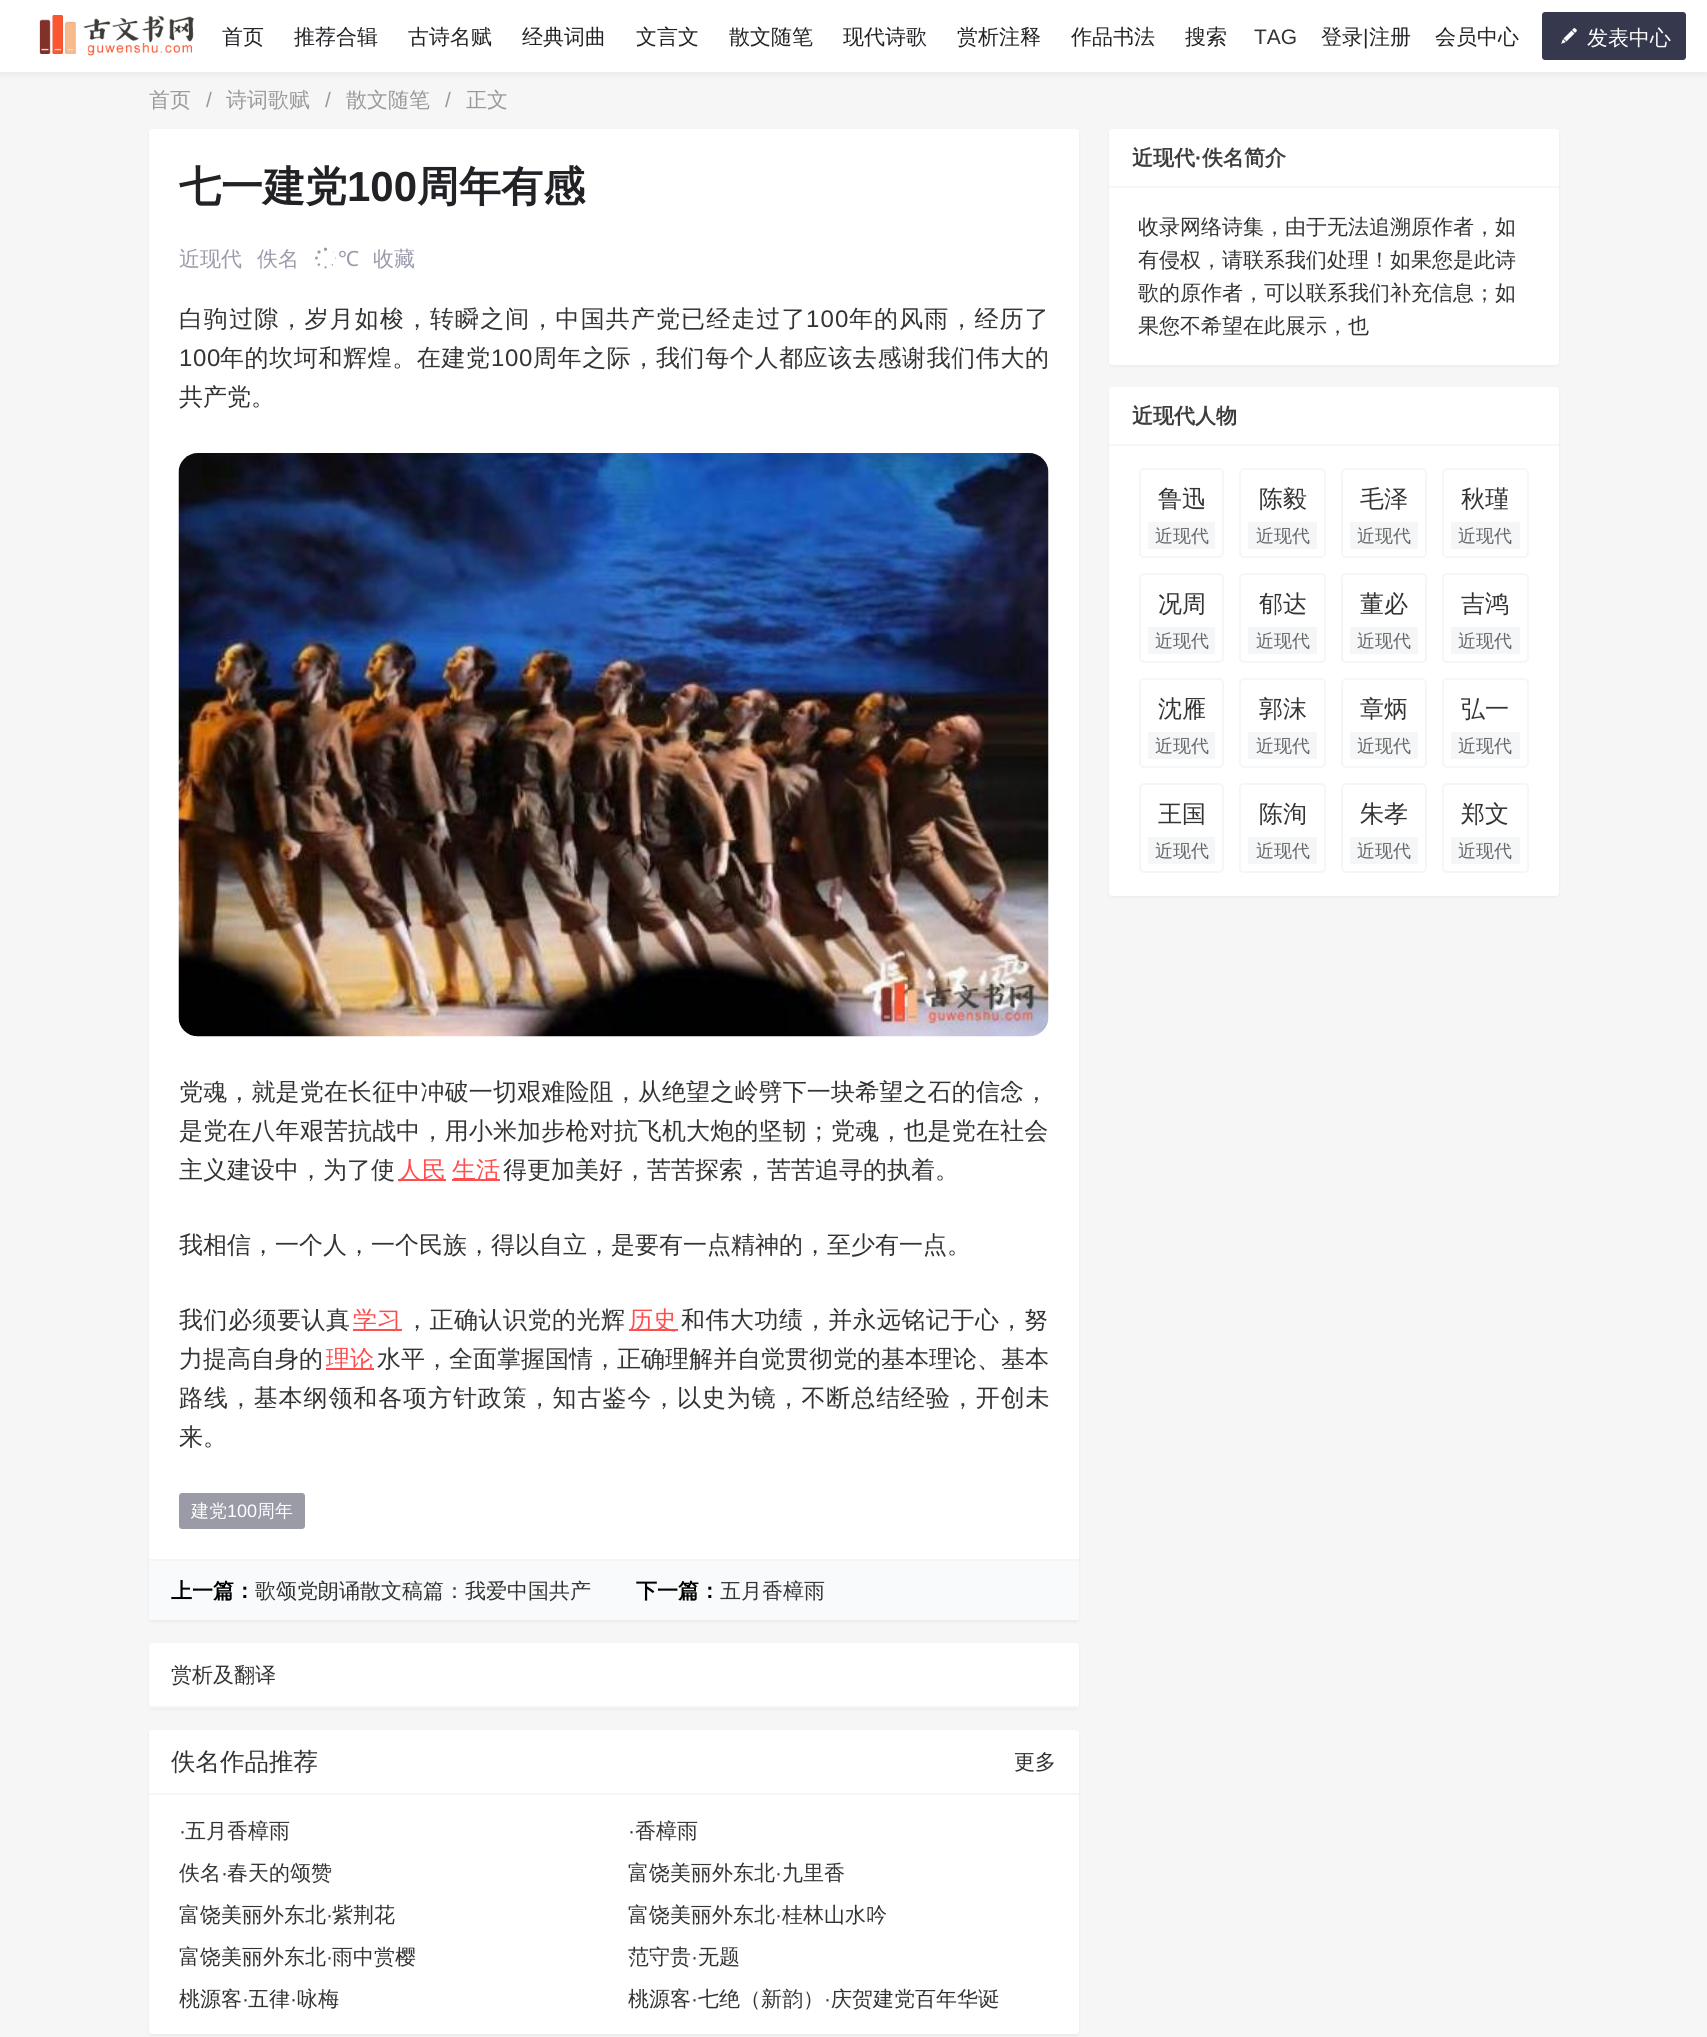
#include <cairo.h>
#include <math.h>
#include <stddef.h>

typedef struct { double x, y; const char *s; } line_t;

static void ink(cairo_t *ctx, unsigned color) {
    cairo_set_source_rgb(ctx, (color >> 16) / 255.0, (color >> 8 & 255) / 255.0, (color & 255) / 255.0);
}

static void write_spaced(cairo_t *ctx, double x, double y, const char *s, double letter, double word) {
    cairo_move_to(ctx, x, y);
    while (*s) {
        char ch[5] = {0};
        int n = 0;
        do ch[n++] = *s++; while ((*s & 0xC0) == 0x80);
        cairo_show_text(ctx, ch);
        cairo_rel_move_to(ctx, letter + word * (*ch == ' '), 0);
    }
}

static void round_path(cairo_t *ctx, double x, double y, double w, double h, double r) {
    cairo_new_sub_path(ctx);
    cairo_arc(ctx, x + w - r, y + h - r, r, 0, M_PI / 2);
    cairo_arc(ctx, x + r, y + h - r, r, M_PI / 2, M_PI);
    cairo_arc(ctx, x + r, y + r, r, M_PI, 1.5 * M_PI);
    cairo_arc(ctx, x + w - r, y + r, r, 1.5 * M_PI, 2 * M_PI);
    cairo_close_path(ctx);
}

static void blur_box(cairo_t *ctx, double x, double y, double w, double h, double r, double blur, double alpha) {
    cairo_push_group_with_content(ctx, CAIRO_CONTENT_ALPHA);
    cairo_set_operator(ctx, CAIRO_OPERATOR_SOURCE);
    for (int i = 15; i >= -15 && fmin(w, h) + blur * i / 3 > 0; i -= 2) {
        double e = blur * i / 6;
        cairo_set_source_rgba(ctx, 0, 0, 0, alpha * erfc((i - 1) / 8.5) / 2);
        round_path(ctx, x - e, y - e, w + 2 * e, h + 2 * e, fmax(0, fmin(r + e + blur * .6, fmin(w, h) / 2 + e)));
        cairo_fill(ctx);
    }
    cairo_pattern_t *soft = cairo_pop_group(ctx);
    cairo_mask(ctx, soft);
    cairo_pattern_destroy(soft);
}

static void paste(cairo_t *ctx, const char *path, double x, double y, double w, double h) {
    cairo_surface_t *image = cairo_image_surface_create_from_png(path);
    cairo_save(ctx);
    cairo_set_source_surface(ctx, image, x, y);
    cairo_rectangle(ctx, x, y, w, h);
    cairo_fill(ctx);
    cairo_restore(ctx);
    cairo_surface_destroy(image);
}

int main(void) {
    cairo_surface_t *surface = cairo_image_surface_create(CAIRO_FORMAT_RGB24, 1707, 2037);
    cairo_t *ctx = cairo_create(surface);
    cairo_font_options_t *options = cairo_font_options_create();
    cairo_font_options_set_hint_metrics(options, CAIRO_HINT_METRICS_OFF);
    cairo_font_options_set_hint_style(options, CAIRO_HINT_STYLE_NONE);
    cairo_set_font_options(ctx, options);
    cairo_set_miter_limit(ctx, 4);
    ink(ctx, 0xF6F6F6);
    cairo_paint(ctx);
    ink(ctx, 0x000000);
    blur_box(ctx, 0, 3, 1707, 72, 0, 3, 0.05);
    ink(ctx, 0xFFFFFF);
    cairo_rectangle(ctx, 0, 0, 1707, 72);
    cairo_fill(ctx);
    paste(ctx, "media/1.png", 39, 15, 156, 41);
    cairo_select_font_face(ctx, "WenQuanYi Zen Hei Medium", CAIRO_FONT_SLANT_NORMAL, CAIRO_FONT_WEIGHT_NORMAL);
    cairo_set_font_size(ctx, 21);
    ink(ctx, 0x222226);
    {
        static const line_t items[] = {
            {222, 44, "首页"},
            {294, 44, "推荐合辑"},
            {408, 44, "古诗名赋"},
            {522, 44, "经典词曲"},
            {636, 44, "文言文"},
            {729, 44, "散文随笔"},
            {843, 44, "现代诗歌"},
            {957, 44, "赏析注释"},
            {1071, 44, "作品书法"},
            {1185, 44, "搜索"},
        };
        for (size_t i = 0; i < sizeof items / sizeof *items; i++) {
            cairo_move_to(ctx, items[i].x, items[i].y);
            cairo_show_text(ctx, items[i].s);
        }
    }
    cairo_select_font_face(ctx, "Liberation Sans", CAIRO_FONT_SLANT_NORMAL, CAIRO_FONT_WEIGHT_NORMAL);
    ink(ctx, 0x333333);
    cairo_move_to(ctx, 1254, 44);
    cairo_show_text(ctx, "TAG");
    cairo_select_font_face(ctx, "WenQuanYi Zen Hei Medium", CAIRO_FONT_SLANT_NORMAL, CAIRO_FONT_WEIGHT_NORMAL);
    ink(ctx, 0x222226);
    cairo_move_to(ctx, 1321, 44);
    cairo_show_text(ctx, "登录");
    cairo_select_font_face(ctx, "Liberation Sans", CAIRO_FONT_SLANT_NORMAL, CAIRO_FONT_WEIGHT_NORMAL);
    cairo_move_to(ctx, 1363, 44);
    cairo_show_text(ctx, "|");
    cairo_select_font_face(ctx, "WenQuanYi Zen Hei Medium", CAIRO_FONT_SLANT_NORMAL, CAIRO_FONT_WEIGHT_NORMAL);
    cairo_move_to(ctx, 1369, 44);
    cairo_show_text(ctx, "注册");
    cairo_move_to(ctx, 1435, 44);
    cairo_show_text(ctx, "会员中心");
    ink(ctx, 0x36384D);
    round_path(ctx, 1542, 12, 144, 48, 3);
    cairo_fill(ctx);
    paste(ctx, "media/2.png", 1561, 28, 16, 16);
    ink(ctx, 0xFFFFFF);
    cairo_move_to(ctx, 1587, 45);
    cairo_show_text(ctx, "发表中心");
    ink(ctx, 0x999999);
    cairo_move_to(ctx, 149, 107);
    cairo_show_text(ctx, "首页");
    cairo_select_font_face(ctx, "Liberation Sans", CAIRO_FONT_SLANT_NORMAL, CAIRO_FONT_WEIGHT_NORMAL);
    cairo_move_to(ctx, 206, 107);
    cairo_show_text(ctx, "/");
    cairo_select_font_face(ctx, "WenQuanYi Zen Hei Medium", CAIRO_FONT_SLANT_NORMAL, CAIRO_FONT_WEIGHT_NORMAL);
    cairo_move_to(ctx, 226, 107);
    cairo_show_text(ctx, "诗词歌赋");
    cairo_select_font_face(ctx, "Liberation Sans", CAIRO_FONT_SLANT_NORMAL, CAIRO_FONT_WEIGHT_NORMAL);
    cairo_move_to(ctx, 325, 107);
    cairo_show_text(ctx, "/");
    cairo_select_font_face(ctx, "WenQuanYi Zen Hei Medium", CAIRO_FONT_SLANT_NORMAL, CAIRO_FONT_WEIGHT_NORMAL);
    cairo_move_to(ctx, 346, 107);
    cairo_show_text(ctx, "散文随笔");
    cairo_select_font_face(ctx, "Liberation Sans", CAIRO_FONT_SLANT_NORMAL, CAIRO_FONT_WEIGHT_NORMAL);
    cairo_move_to(ctx, 445, 107);
    cairo_show_text(ctx, "/");
    cairo_select_font_face(ctx, "WenQuanYi Zen Hei Medium", CAIRO_FONT_SLANT_NORMAL, CAIRO_FONT_WEIGHT_NORMAL);
    cairo_move_to(ctx, 466, 107);
    cairo_show_text(ctx, "正文");
    ink(ctx, 0x000000);
    blur_box(ctx, 149, 131, 930, 1491, 3, 1.5, 0.05);
    ink(ctx, 0xFFFFFF);
    round_path(ctx, 149, 129, 930, 1491, 3);
    cairo_fill(ctx);
    cairo_select_font_face(ctx, "WenQuanYi Zen Hei", CAIRO_FONT_SLANT_NORMAL, CAIRO_FONT_WEIGHT_BOLD);
    cairo_set_font_size(ctx, 42);
    ink(ctx, 0x222226);
    cairo_move_to(ctx, 179, 201);
    cairo_show_text(ctx, "七一建党");
    cairo_select_font_face(ctx, "Liberation Sans", CAIRO_FONT_SLANT_NORMAL, CAIRO_FONT_WEIGHT_BOLD);
    cairo_move_to(ctx, 347, 201);
    cairo_show_text(ctx, "100");
    cairo_select_font_face(ctx, "WenQuanYi Zen Hei", CAIRO_FONT_SLANT_NORMAL, CAIRO_FONT_WEIGHT_BOLD);
    cairo_move_to(ctx, 417, 201);
    cairo_show_text(ctx, "周年有感");
    cairo_select_font_face(ctx, "WenQuanYi Zen Hei Medium", CAIRO_FONT_SLANT_NORMAL, CAIRO_FONT_WEIGHT_NORMAL);
    cairo_set_font_size(ctx, 21);
    ink(ctx, 0x999AAA);
    cairo_move_to(ctx, 179, 266);
    cairo_show_text(ctx, "近现代");
    cairo_move_to(ctx, 257, 266);
    cairo_show_text(ctx, "佚名");
    paste(ctx, "media/3.png", 315, 247, 21, 22);
    cairo_select_font_face(ctx, "Noto Sans", CAIRO_FONT_SLANT_NORMAL, CAIRO_FONT_WEIGHT_NORMAL);
    cairo_move_to(ctx, 338, 266);
    cairo_show_text(ctx, "℃");
    cairo_select_font_face(ctx, "WenQuanYi Zen Hei Medium", CAIRO_FONT_SLANT_NORMAL, CAIRO_FONT_WEIGHT_NORMAL);
    cairo_move_to(ctx, 373, 266);
    cairo_show_text(ctx, "收藏");
    cairo_set_font_size(ctx, 24);
    ink(ctx, 0x333333);
    write_spaced(ctx, 179, 327, "白驹过隙，岁月如梭，转瞬之间，中国共产党已经走过了", 1.1, 0);
    cairo_select_font_face(ctx, "Liberation Sans", CAIRO_FONT_SLANT_NORMAL, CAIRO_FONT_WEIGHT_NORMAL);
    write_spaced(ctx, 806, 327, "100", 1.1, 0);
    cairo_select_font_face(ctx, "WenQuanYi Zen Hei Medium", CAIRO_FONT_SLANT_NORMAL, CAIRO_FONT_WEIGHT_NORMAL);
    write_spaced(ctx, 849, 327, "年的风雨，经历了", 1.1, 0);
    cairo_select_font_face(ctx, "Liberation Sans", CAIRO_FONT_SLANT_NORMAL, CAIRO_FONT_WEIGHT_NORMAL);
    write_spaced(ctx, 179, 366, "100", 0.6, 0);
    cairo_select_font_face(ctx, "WenQuanYi Zen Hei Medium", CAIRO_FONT_SLANT_NORMAL, CAIRO_FONT_WEIGHT_NORMAL);
    write_spaced(ctx, 220, 366, "年的坎坷和辉煌。在建党", 0.6, 0);
    cairo_select_font_face(ctx, "Liberation Sans", CAIRO_FONT_SLANT_NORMAL, CAIRO_FONT_WEIGHT_NORMAL);
    write_spaced(ctx, 491, 366, "100", 0.6, 0);
    cairo_select_font_face(ctx, "WenQuanYi Zen Hei Medium", CAIRO_FONT_SLANT_NORMAL, CAIRO_FONT_WEIGHT_NORMAL);
    write_spaced(ctx, 533, 366, "周年之际，我们每个人都应该去感谢我们伟大的", 0.6, 0);
    cairo_move_to(ctx, 179, 405);
    cairo_show_text(ctx, "共产党。");
    paste(ctx, "media/4.png", 178, 453, 871, 584);
    write_spaced(ctx, 179, 1100, "党魂，就是党在长征中冲破一切艰难险阻，从绝望之岭劈下一块希望之石的信念，", 0.15, 0);
    write_spaced(ctx, 179, 1139, "是党在八年艰苦抗战中，用小米加步枪对抗飞机大炮的坚韧；党魂，也是党在社会", 0.15, 0);
    cairo_move_to(ctx, 179, 1178);
    cairo_show_text(ctx, "主义建设中，为了使");
    ink(ctx, 0xFF4D4D);
    cairo_rectangle(ctx, 398, 1179, 48, 2);
    cairo_fill(ctx);
    cairo_move_to(ctx, 398, 1178);
    cairo_show_text(ctx, "人民");
    cairo_rectangle(ctx, 452, 1179, 48, 2);
    cairo_fill(ctx);
    cairo_move_to(ctx, 452, 1178);
    cairo_show_text(ctx, "生活");
    ink(ctx, 0x333333);
    cairo_move_to(ctx, 503, 1178);
    cairo_show_text(ctx, "得更加美好，苦苦探索，苦苦追寻的执着。");
    cairo_move_to(ctx, 179, 1253);
    cairo_show_text(ctx, "我相信，一个人，一个民族，得以自立，是要有一点精神的，至少有一点。");
    write_spaced(ctx, 179, 1328, "我们必须要认真", 0.5, 0);
    ink(ctx, 0xFF4D4D);
    cairo_rectangle(ctx, 353, 1329, 49, 2);
    cairo_fill(ctx);
    cairo_move_to(ctx, 353, 1328);
    cairo_show_text(ctx, "学习");
    ink(ctx, 0x333333);
    write_spaced(ctx, 405, 1328, "，正确认识党的光辉", 0.5, 0);
    ink(ctx, 0xFF4D4D);
    cairo_rectangle(ctx, 629, 1329, 49, 2);
    cairo_fill(ctx);
    cairo_move_to(ctx, 629, 1328);
    cairo_show_text(ctx, "历史");
    ink(ctx, 0x333333);
    write_spaced(ctx, 681, 1328, "和伟大功绩，并永远铭记于心，努", 0.5, 0);
    cairo_move_to(ctx, 179, 1367);
    cairo_show_text(ctx, "力提高自身的");
    ink(ctx, 0xFF4D4D);
    cairo_rectangle(ctx, 326, 1368, 48, 2);
    cairo_fill(ctx);
    cairo_move_to(ctx, 326, 1367);
    cairo_show_text(ctx, "理论");
    ink(ctx, 0x333333);
    cairo_move_to(ctx, 377, 1367);
    cairo_show_text(ctx, "水平，全面掌握国情，正确理解并自觉贯彻党的基本理论、基本");
    write_spaced(ctx, 179, 1406, "路线，基本纲领和各项方针政策，知古鉴今，以史为镜，不断总结经验，开创未", 0.9, 0);
    cairo_move_to(ctx, 179, 1445);
    cairo_show_text(ctx, "来。");
    ink(ctx, 0x9A9BA6);
    round_path(ctx, 179, 1493, 126, 36, 3);
    cairo_fill(ctx);
    cairo_set_font_size(ctx, 18);
    ink(ctx, 0xFFFFFF);
    cairo_move_to(ctx, 191, 1517);
    cairo_show_text(ctx, "建党");
    cairo_select_font_face(ctx, "Liberation Sans", CAIRO_FONT_SLANT_NORMAL, CAIRO_FONT_WEIGHT_NORMAL);
    cairo_move_to(ctx, 227, 1517);
    cairo_show_text(ctx, "100");
    cairo_select_font_face(ctx, "WenQuanYi Zen Hei Medium", CAIRO_FONT_SLANT_NORMAL, CAIRO_FONT_WEIGHT_NORMAL);
    cairo_move_to(ctx, 257, 1517);
    cairo_show_text(ctx, "周年");
    ink(ctx, 0xF9FAFB);
    cairo_rectangle(ctx, 149, 1561, 930, 59);
    cairo_fill(ctx);
    ink(ctx, 0xF5F5F5);
    cairo_rectangle(ctx, 149, 1559, 930, 2);
    cairo_fill(ctx);
    cairo_select_font_face(ctx, "WenQuanYi Zen Hei", CAIRO_FONT_SLANT_NORMAL, CAIRO_FONT_WEIGHT_BOLD);
    cairo_set_font_size(ctx, 21);
    ink(ctx, 0x000000);
    cairo_move_to(ctx, 171, 1598);
    cairo_show_text(ctx, "上一篇：");
    cairo_select_font_face(ctx, "WenQuanYi Zen Hei Medium", CAIRO_FONT_SLANT_NORMAL, CAIRO_FONT_WEIGHT_NORMAL);
    ink(ctx, 0x333333);
    cairo_move_to(ctx, 255, 1598);
    cairo_show_text(ctx, "歌颂党朗诵散文稿篇：我爱中国共产");
    cairo_select_font_face(ctx, "WenQuanYi Zen Hei", CAIRO_FONT_SLANT_NORMAL, CAIRO_FONT_WEIGHT_BOLD);
    ink(ctx, 0x000000);
    cairo_move_to(ctx, 636, 1598);
    cairo_show_text(ctx, "下一篇：");
    cairo_select_font_face(ctx, "WenQuanYi Zen Hei Medium", CAIRO_FONT_SLANT_NORMAL, CAIRO_FONT_WEIGHT_NORMAL);
    ink(ctx, 0x333333);
    cairo_move_to(ctx, 720, 1598);
    cairo_show_text(ctx, "五月香樟雨");
    ink(ctx, 0x000000);
    blur_box(ctx, 149, 1644, 930, 65, 3, 1.5, 0.05);
    ink(ctx, 0xFFFFFF);
    round_path(ctx, 149, 1643, 930, 64, 3);
    cairo_fill(ctx);
    ink(ctx, 0xF6F6F6);
    cairo_rectangle(ctx, 149, 1706, 930, 2);
    cairo_fill(ctx);
    ink(ctx, 0x333333);
    cairo_move_to(ctx, 171, 1682);
    cairo_show_text(ctx, "赏析及翻译");
    ink(ctx, 0x000000);
    blur_box(ctx, 149, 1731, 930, 305, 3, 1.5, 0.05);
    ink(ctx, 0xFFFFFF);
    round_path(ctx, 149, 1730, 930, 304, 3);
    cairo_fill(ctx);
    ink(ctx, 0xF6F6F6);
    cairo_rectangle(ctx, 149, 1793, 930, 2);
    cairo_fill(ctx);
    cairo_set_font_size(ctx, 24.5);
    ink(ctx, 0x333333);
    cairo_move_to(ctx, 171, 1770);
    cairo_show_text(ctx, "佚名作品推荐");
    cairo_set_font_size(ctx, 21);
    cairo_move_to(ctx, 1014, 1769);
    cairo_show_text(ctx, "更多");
    cairo_select_font_face(ctx, "Liberation Sans", CAIRO_FONT_SLANT_NORMAL, CAIRO_FONT_WEIGHT_NORMAL);
    cairo_move_to(ctx, 179, 1838);
    cairo_show_text(ctx, "·");
    cairo_select_font_face(ctx, "WenQuanYi Zen Hei Medium", CAIRO_FONT_SLANT_NORMAL, CAIRO_FONT_WEIGHT_NORMAL);
    cairo_move_to(ctx, 185, 1838);
    cairo_show_text(ctx, "五月香樟雨");
    cairo_select_font_face(ctx, "Liberation Sans", CAIRO_FONT_SLANT_NORMAL, CAIRO_FONT_WEIGHT_NORMAL);
    cairo_move_to(ctx, 628, 1838);
    cairo_show_text(ctx, "·");
    cairo_select_font_face(ctx, "WenQuanYi Zen Hei Medium", CAIRO_FONT_SLANT_NORMAL, CAIRO_FONT_WEIGHT_NORMAL);
    cairo_move_to(ctx, 635, 1838);
    cairo_show_text(ctx, "香樟雨");
    cairo_move_to(ctx, 179, 1880);
    cairo_show_text(ctx, "佚名");
    cairo_select_font_face(ctx, "Liberation Sans", CAIRO_FONT_SLANT_NORMAL, CAIRO_FONT_WEIGHT_NORMAL);
    cairo_move_to(ctx, 221, 1880);
    cairo_show_text(ctx, "·");
    cairo_select_font_face(ctx, "WenQuanYi Zen Hei Medium", CAIRO_FONT_SLANT_NORMAL, CAIRO_FONT_WEIGHT_NORMAL);
    cairo_move_to(ctx, 227, 1880);
    cairo_show_text(ctx, "春天的颂赞");
    cairo_move_to(ctx, 628, 1880);
    cairo_show_text(ctx, "富饶美丽外东北");
    cairo_select_font_face(ctx, "Liberation Sans", CAIRO_FONT_SLANT_NORMAL, CAIRO_FONT_WEIGHT_NORMAL);
    cairo_move_to(ctx, 775, 1880);
    cairo_show_text(ctx, "·");
    cairo_select_font_face(ctx, "WenQuanYi Zen Hei Medium", CAIRO_FONT_SLANT_NORMAL, CAIRO_FONT_WEIGHT_NORMAL);
    cairo_move_to(ctx, 782, 1880);
    cairo_show_text(ctx, "九里香");
    cairo_move_to(ctx, 179, 1922);
    cairo_show_text(ctx, "富饶美丽外东北");
    cairo_select_font_face(ctx, "Liberation Sans", CAIRO_FONT_SLANT_NORMAL, CAIRO_FONT_WEIGHT_NORMAL);
    cairo_move_to(ctx, 326, 1922);
    cairo_show_text(ctx, "·");
    cairo_select_font_face(ctx, "WenQuanYi Zen Hei Medium", CAIRO_FONT_SLANT_NORMAL, CAIRO_FONT_WEIGHT_NORMAL);
    cairo_move_to(ctx, 332, 1922);
    cairo_show_text(ctx, "紫荆花");
    cairo_move_to(ctx, 628, 1922);
    cairo_show_text(ctx, "富饶美丽外东北");
    cairo_select_font_face(ctx, "Liberation Sans", CAIRO_FONT_SLANT_NORMAL, CAIRO_FONT_WEIGHT_NORMAL);
    cairo_move_to(ctx, 775, 1922);
    cairo_show_text(ctx, "·");
    cairo_select_font_face(ctx, "WenQuanYi Zen Hei Medium", CAIRO_FONT_SLANT_NORMAL, CAIRO_FONT_WEIGHT_NORMAL);
    cairo_move_to(ctx, 782, 1922);
    cairo_show_text(ctx, "桂林山水吟");
    cairo_move_to(ctx, 179, 1964);
    cairo_show_text(ctx, "富饶美丽外东北");
    cairo_select_font_face(ctx, "Liberation Sans", CAIRO_FONT_SLANT_NORMAL, CAIRO_FONT_WEIGHT_NORMAL);
    cairo_move_to(ctx, 326, 1964);
    cairo_show_text(ctx, "·");
    cairo_select_font_face(ctx, "WenQuanYi Zen Hei Medium", CAIRO_FONT_SLANT_NORMAL, CAIRO_FONT_WEIGHT_NORMAL);
    cairo_move_to(ctx, 332, 1964);
    cairo_show_text(ctx, "雨中赏樱");
    cairo_move_to(ctx, 628, 1964);
    cairo_show_text(ctx, "范守贵");
    cairo_select_font_face(ctx, "Liberation Sans", CAIRO_FONT_SLANT_NORMAL, CAIRO_FONT_WEIGHT_NORMAL);
    cairo_move_to(ctx, 691, 1964);
    cairo_show_text(ctx, "·");
    cairo_select_font_face(ctx, "WenQuanYi Zen Hei Medium", CAIRO_FONT_SLANT_NORMAL, CAIRO_FONT_WEIGHT_NORMAL);
    cairo_move_to(ctx, 698, 1964);
    cairo_show_text(ctx, "无题");
    cairo_move_to(ctx, 179, 2006);
    cairo_show_text(ctx, "桃源客");
    cairo_select_font_face(ctx, "Liberation Sans", CAIRO_FONT_SLANT_NORMAL, CAIRO_FONT_WEIGHT_NORMAL);
    cairo_move_to(ctx, 242, 2006);
    cairo_show_text(ctx, "·");
    cairo_select_font_face(ctx, "WenQuanYi Zen Hei Medium", CAIRO_FONT_SLANT_NORMAL, CAIRO_FONT_WEIGHT_NORMAL);
    cairo_move_to(ctx, 248, 2006);
    cairo_show_text(ctx, "五律");
    cairo_select_font_face(ctx, "Liberation Sans", CAIRO_FONT_SLANT_NORMAL, CAIRO_FONT_WEIGHT_NORMAL);
    cairo_move_to(ctx, 290, 2006);
    cairo_show_text(ctx, "·");
    cairo_select_font_face(ctx, "WenQuanYi Zen Hei Medium", CAIRO_FONT_SLANT_NORMAL, CAIRO_FONT_WEIGHT_NORMAL);
    cairo_move_to(ctx, 297, 2006);
    cairo_show_text(ctx, "咏梅");
    cairo_move_to(ctx, 628, 2006);
    cairo_show_text(ctx, "桃源客");
    cairo_select_font_face(ctx, "Liberation Sans", CAIRO_FONT_SLANT_NORMAL, CAIRO_FONT_WEIGHT_NORMAL);
    cairo_move_to(ctx, 691, 2006);
    cairo_show_text(ctx, "·");
    cairo_select_font_face(ctx, "WenQuanYi Zen Hei Medium", CAIRO_FONT_SLANT_NORMAL, CAIRO_FONT_WEIGHT_NORMAL);
    cairo_move_to(ctx, 698, 2006);
    cairo_show_text(ctx, "七绝（新韵）");
    cairo_select_font_face(ctx, "Liberation Sans", CAIRO_FONT_SLANT_NORMAL, CAIRO_FONT_WEIGHT_NORMAL);
    cairo_move_to(ctx, 824, 2006);
    cairo_show_text(ctx, "·");
    cairo_select_font_face(ctx, "WenQuanYi Zen Hei Medium", CAIRO_FONT_SLANT_NORMAL, CAIRO_FONT_WEIGHT_NORMAL);
    cairo_move_to(ctx, 831, 2006);
    cairo_show_text(ctx, "庆贺建党百年华诞");
    ink(ctx, 0x000000);
    blur_box(ctx, 1109, 131, 450, 235, 3, 1.5, 0.05);
    ink(ctx, 0xFFFFFF);
    round_path(ctx, 1109, 129, 450, 236, 3);
    cairo_fill(ctx);
    ink(ctx, 0xF5F6F7);
    cairo_rectangle(ctx, 1109, 186, 450, 2);
    cairo_fill(ctx);
    cairo_select_font_face(ctx, "WenQuanYi Zen Hei", CAIRO_FONT_SLANT_NORMAL, CAIRO_FONT_WEIGHT_BOLD);
    ink(ctx, 0x3D3D3D);
    cairo_move_to(ctx, 1132, 165);
    cairo_show_text(ctx, "近现代");
    cairo_select_font_face(ctx, "Liberation Sans", CAIRO_FONT_SLANT_NORMAL, CAIRO_FONT_WEIGHT_BOLD);
    cairo_move_to(ctx, 1195, 165);
    cairo_show_text(ctx, "·");
    cairo_select_font_face(ctx, "WenQuanYi Zen Hei", CAIRO_FONT_SLANT_NORMAL, CAIRO_FONT_WEIGHT_BOLD);
    cairo_move_to(ctx, 1202, 165);
    cairo_show_text(ctx, "佚名简介");
    cairo_select_font_face(ctx, "WenQuanYi Zen Hei Medium", CAIRO_FONT_SLANT_NORMAL, CAIRO_FONT_WEIGHT_NORMAL);
    ink(ctx, 0x333333);
    {
        static const line_t items[] = {
            {1138, 234, "收录网络诗集，由于无法追溯原作者，如"},
            {1138, 267, "有侵权，请联系我们处理！如果您是此诗"},
            {1138, 300, "歌的原作者，可以联系我们补充信息；如"},
            {1138, 333, "果您不希望在此展示，也"},
        };
        for (size_t i = 0; i < sizeof items / sizeof *items; i++) {
            cairo_move_to(ctx, items[i].x, items[i].y);
            cairo_show_text(ctx, items[i].s);
        }
    }
    ink(ctx, 0x000000);
    blur_box(ctx, 1109, 389, 450, 508, 3, 1.5, 0.05);
    ink(ctx, 0xFFFFFF);
    round_path(ctx, 1109, 387, 450, 509, 3);
    cairo_fill(ctx);
    ink(ctx, 0xF5F6F7);
    cairo_rectangle(ctx, 1109, 444, 450, 2);
    cairo_fill(ctx);
    cairo_select_font_face(ctx, "WenQuanYi Zen Hei", CAIRO_FONT_SLANT_NORMAL, CAIRO_FONT_WEIGHT_BOLD);
    ink(ctx, 0x3D3D3D);
    cairo_move_to(ctx, 1132, 423);
    cairo_show_text(ctx, "近现代人物");
    round_path(ctx, 1140, 469, 83, 88, 4);
    ink(ctx, 0xF5F6F7);
    cairo_stroke(ctx);
    cairo_select_font_face(ctx, "WenQuanYi Zen Hei Medium", CAIRO_FONT_SLANT_NORMAL, CAIRO_FONT_WEIGHT_NORMAL);
    cairo_set_font_size(ctx, 24);
    ink(ctx, 0x333333);
    cairo_move_to(ctx, 1158, 507);
    cairo_show_text(ctx, "鲁迅");
    ink(ctx, 0xF5F6F7);
    cairo_rectangle(ctx, 1148, 522, 67, 27);
    cairo_fill(ctx);
    cairo_set_font_size(ctx, 18);
    ink(ctx, 0x666666);
    cairo_move_to(ctx, 1155, 542);
    cairo_show_text(ctx, "近现代");
    round_path(ctx, 1240, 469, 85, 88, 4);
    ink(ctx, 0xF5F6F7);
    cairo_stroke(ctx);
    cairo_set_font_size(ctx, 24);
    ink(ctx, 0x333333);
    cairo_move_to(ctx, 1259, 507);
    cairo_show_text(ctx, "陈毅");
    ink(ctx, 0xF5F6F7);
    cairo_rectangle(ctx, 1248, 522, 69, 27);
    cairo_fill(ctx);
    cairo_set_font_size(ctx, 18);
    ink(ctx, 0x666666);
    cairo_move_to(ctx, 1256, 542);
    cairo_show_text(ctx, "近现代");
    round_path(ctx, 1342, 469, 84, 88, 4);
    ink(ctx, 0xF5F6F7);
    cairo_stroke(ctx);
    cairo_set_font_size(ctx, 24);
    ink(ctx, 0x333333);
    cairo_move_to(ctx, 1360, 507);
    cairo_show_text(ctx, "毛泽");
    ink(ctx, 0xF5F6F7);
    cairo_rectangle(ctx, 1350, 522, 68, 27);
    cairo_fill(ctx);
    cairo_set_font_size(ctx, 18);
    ink(ctx, 0x666666);
    cairo_move_to(ctx, 1357, 542);
    cairo_show_text(ctx, "近现代");
    round_path(ctx, 1443, 469, 85, 88, 4);
    ink(ctx, 0xF5F6F7);
    cairo_stroke(ctx);
    cairo_set_font_size(ctx, 24);
    ink(ctx, 0x333333);
    cairo_move_to(ctx, 1461, 507);
    cairo_show_text(ctx, "秋瑾");
    ink(ctx, 0xF5F6F7);
    cairo_rectangle(ctx, 1451, 522, 69, 27);
    cairo_fill(ctx);
    cairo_set_font_size(ctx, 18);
    ink(ctx, 0x666666);
    cairo_move_to(ctx, 1458, 542);
    cairo_show_text(ctx, "近现代");
    round_path(ctx, 1140, 574, 83, 88, 4);
    ink(ctx, 0xF5F6F7);
    cairo_stroke(ctx);
    cairo_set_font_size(ctx, 24);
    ink(ctx, 0x333333);
    cairo_move_to(ctx, 1158, 612);
    cairo_show_text(ctx, "况周");
    ink(ctx, 0xF5F6F7);
    cairo_rectangle(ctx, 1148, 627, 67, 27);
    cairo_fill(ctx);
    cairo_set_font_size(ctx, 18);
    ink(ctx, 0x666666);
    cairo_move_to(ctx, 1155, 647);
    cairo_show_text(ctx, "近现代");
    round_path(ctx, 1240, 574, 85, 88, 4);
    ink(ctx, 0xF5F6F7);
    cairo_stroke(ctx);
    cairo_set_font_size(ctx, 24);
    ink(ctx, 0x333333);
    cairo_move_to(ctx, 1259, 612);
    cairo_show_text(ctx, "郁达");
    ink(ctx, 0xF5F6F7);
    cairo_rectangle(ctx, 1248, 627, 69, 27);
    cairo_fill(ctx);
    cairo_set_font_size(ctx, 18);
    ink(ctx, 0x666666);
    cairo_move_to(ctx, 1256, 647);
    cairo_show_text(ctx, "近现代");
    round_path(ctx, 1342, 574, 84, 88, 4);
    ink(ctx, 0xF5F6F7);
    cairo_stroke(ctx);
    cairo_set_font_size(ctx, 24);
    ink(ctx, 0x333333);
    cairo_move_to(ctx, 1360, 612);
    cairo_show_text(ctx, "董必");
    ink(ctx, 0xF5F6F7);
    cairo_rectangle(ctx, 1350, 627, 68, 27);
    cairo_fill(ctx);
    cairo_set_font_size(ctx, 18);
    ink(ctx, 0x666666);
    cairo_move_to(ctx, 1357, 647);
    cairo_show_text(ctx, "近现代");
    round_path(ctx, 1443, 574, 85, 88, 4);
    ink(ctx, 0xF5F6F7);
    cairo_stroke(ctx);
    cairo_set_font_size(ctx, 24);
    ink(ctx, 0x333333);
    cairo_move_to(ctx, 1461, 612);
    cairo_show_text(ctx, "吉鸿");
    ink(ctx, 0xF5F6F7);
    cairo_rectangle(ctx, 1451, 627, 69, 27);
    cairo_fill(ctx);
    cairo_set_font_size(ctx, 18);
    ink(ctx, 0x666666);
    cairo_move_to(ctx, 1458, 647);
    cairo_show_text(ctx, "近现代");
    round_path(ctx, 1140, 679, 83, 88, 4);
    ink(ctx, 0xF5F6F7);
    cairo_stroke(ctx);
    cairo_set_font_size(ctx, 24);
    ink(ctx, 0x333333);
    cairo_move_to(ctx, 1158, 717);
    cairo_show_text(ctx, "沈雁");
    ink(ctx, 0xF5F6F7);
    cairo_rectangle(ctx, 1148, 732, 67, 27);
    cairo_fill(ctx);
    cairo_set_font_size(ctx, 18);
    ink(ctx, 0x666666);
    cairo_move_to(ctx, 1155, 752);
    cairo_show_text(ctx, "近现代");
    round_path(ctx, 1240, 679, 85, 88, 4);
    ink(ctx, 0xF5F6F7);
    cairo_stroke(ctx);
    cairo_set_font_size(ctx, 24);
    ink(ctx, 0x333333);
    cairo_move_to(ctx, 1259, 717);
    cairo_show_text(ctx, "郭沫");
    ink(ctx, 0xF5F6F7);
    cairo_rectangle(ctx, 1248, 732, 69, 27);
    cairo_fill(ctx);
    cairo_set_font_size(ctx, 18);
    ink(ctx, 0x666666);
    cairo_move_to(ctx, 1256, 752);
    cairo_show_text(ctx, "近现代");
    round_path(ctx, 1342, 679, 84, 88, 4);
    ink(ctx, 0xF5F6F7);
    cairo_stroke(ctx);
    cairo_set_font_size(ctx, 24);
    ink(ctx, 0x333333);
    cairo_move_to(ctx, 1360, 717);
    cairo_show_text(ctx, "章炳");
    ink(ctx, 0xF5F6F7);
    cairo_rectangle(ctx, 1350, 732, 68, 27);
    cairo_fill(ctx);
    cairo_set_font_size(ctx, 18);
    ink(ctx, 0x666666);
    cairo_move_to(ctx, 1357, 752);
    cairo_show_text(ctx, "近现代");
    round_path(ctx, 1443, 679, 85, 88, 4);
    ink(ctx, 0xF5F6F7);
    cairo_stroke(ctx);
    cairo_set_font_size(ctx, 24);
    ink(ctx, 0x333333);
    cairo_move_to(ctx, 1461, 717);
    cairo_show_text(ctx, "弘一");
    ink(ctx, 0xF5F6F7);
    cairo_rectangle(ctx, 1451, 732, 69, 27);
    cairo_fill(ctx);
    cairo_set_font_size(ctx, 18);
    ink(ctx, 0x666666);
    cairo_move_to(ctx, 1458, 752);
    cairo_show_text(ctx, "近现代");
    round_path(ctx, 1140, 784, 83, 88, 4);
    ink(ctx, 0xF5F6F7);
    cairo_stroke(ctx);
    cairo_set_font_size(ctx, 24);
    ink(ctx, 0x333333);
    cairo_move_to(ctx, 1158, 822);
    cairo_show_text(ctx, "王国");
    ink(ctx, 0xF5F6F7);
    cairo_rectangle(ctx, 1148, 837, 67, 27);
    cairo_fill(ctx);
    cairo_set_font_size(ctx, 18);
    ink(ctx, 0x666666);
    cairo_move_to(ctx, 1155, 857);
    cairo_show_text(ctx, "近现代");
    round_path(ctx, 1240, 784, 85, 88, 4);
    ink(ctx, 0xF5F6F7);
    cairo_stroke(ctx);
    cairo_set_font_size(ctx, 24);
    ink(ctx, 0x333333);
    cairo_move_to(ctx, 1259, 822);
    cairo_show_text(ctx, "陈洵");
    ink(ctx, 0xF5F6F7);
    cairo_rectangle(ctx, 1248, 837, 69, 27);
    cairo_fill(ctx);
    cairo_set_font_size(ctx, 18);
    ink(ctx, 0x666666);
    cairo_move_to(ctx, 1256, 857);
    cairo_show_text(ctx, "近现代");
    round_path(ctx, 1342, 784, 84, 88, 4);
    ink(ctx, 0xF5F6F7);
    cairo_stroke(ctx);
    cairo_set_font_size(ctx, 24);
    ink(ctx, 0x333333);
    cairo_move_to(ctx, 1360, 822);
    cairo_show_text(ctx, "朱孝");
    ink(ctx, 0xF5F6F7);
    cairo_rectangle(ctx, 1350, 837, 68, 27);
    cairo_fill(ctx);
    cairo_set_font_size(ctx, 18);
    ink(ctx, 0x666666);
    cairo_move_to(ctx, 1357, 857);
    cairo_show_text(ctx, "近现代");
    round_path(ctx, 1443, 784, 85, 88, 4);
    ink(ctx, 0xF5F6F7);
    cairo_stroke(ctx);
    cairo_set_font_size(ctx, 24);
    ink(ctx, 0x333333);
    cairo_move_to(ctx, 1461, 822);
    cairo_show_text(ctx, "郑文");
    ink(ctx, 0xF5F6F7);
    cairo_rectangle(ctx, 1451, 837, 69, 27);
    cairo_fill(ctx);
    cairo_set_font_size(ctx, 18);
    ink(ctx, 0x666666);
    cairo_move_to(ctx, 1458, 857);
    cairo_show_text(ctx, "近现代");
    cairo_surface_write_to_png(surface, "image.png");
    cairo_font_options_destroy(options);
    cairo_destroy(ctx);
    cairo_surface_destroy(surface);
    return 0;
}
